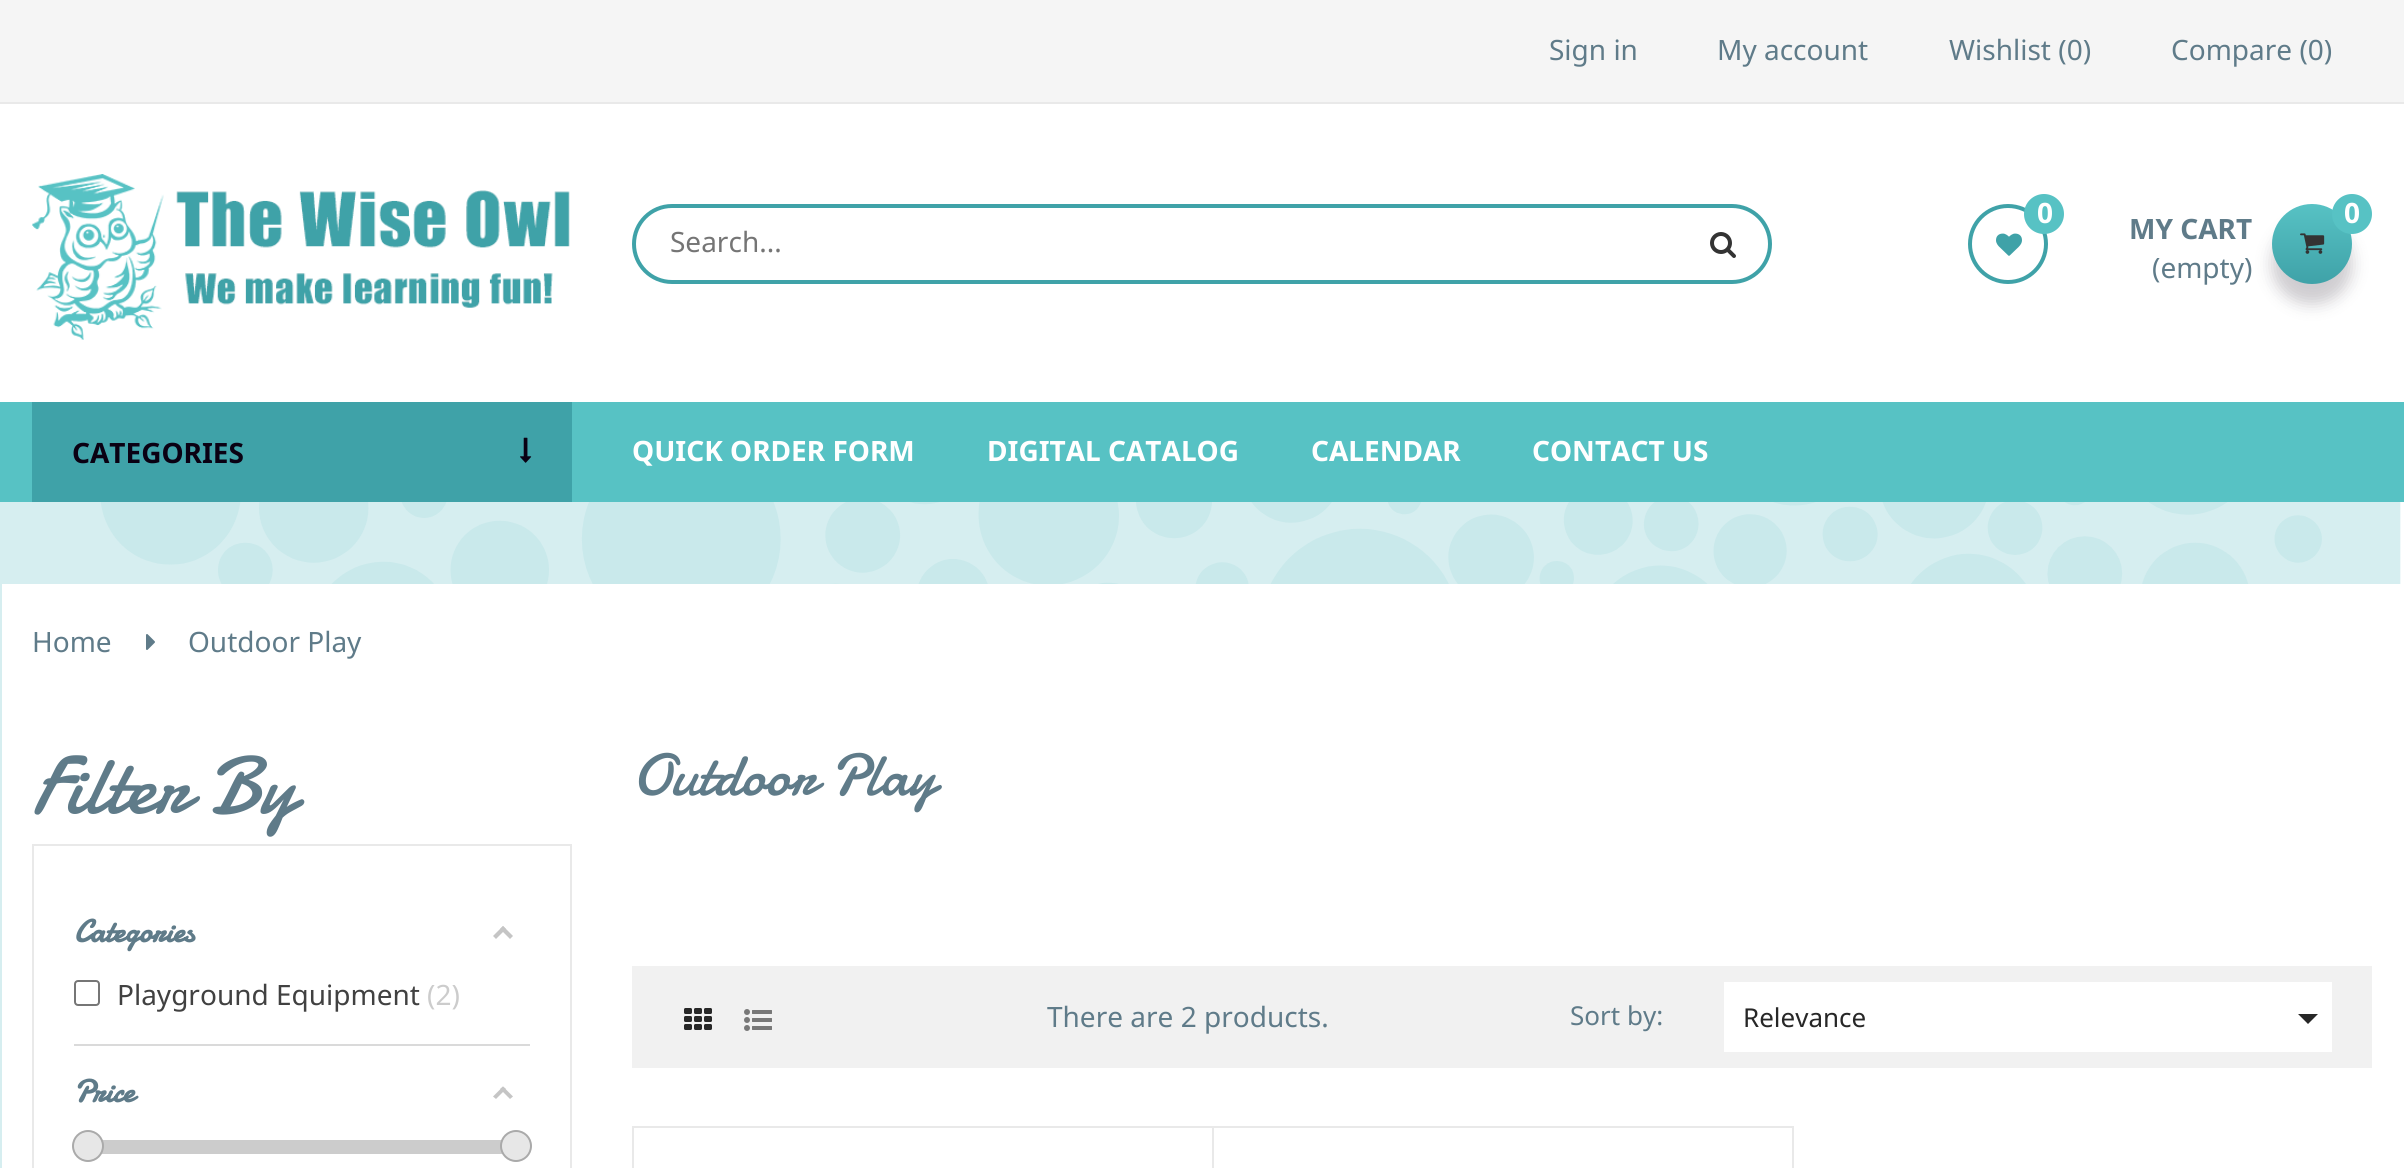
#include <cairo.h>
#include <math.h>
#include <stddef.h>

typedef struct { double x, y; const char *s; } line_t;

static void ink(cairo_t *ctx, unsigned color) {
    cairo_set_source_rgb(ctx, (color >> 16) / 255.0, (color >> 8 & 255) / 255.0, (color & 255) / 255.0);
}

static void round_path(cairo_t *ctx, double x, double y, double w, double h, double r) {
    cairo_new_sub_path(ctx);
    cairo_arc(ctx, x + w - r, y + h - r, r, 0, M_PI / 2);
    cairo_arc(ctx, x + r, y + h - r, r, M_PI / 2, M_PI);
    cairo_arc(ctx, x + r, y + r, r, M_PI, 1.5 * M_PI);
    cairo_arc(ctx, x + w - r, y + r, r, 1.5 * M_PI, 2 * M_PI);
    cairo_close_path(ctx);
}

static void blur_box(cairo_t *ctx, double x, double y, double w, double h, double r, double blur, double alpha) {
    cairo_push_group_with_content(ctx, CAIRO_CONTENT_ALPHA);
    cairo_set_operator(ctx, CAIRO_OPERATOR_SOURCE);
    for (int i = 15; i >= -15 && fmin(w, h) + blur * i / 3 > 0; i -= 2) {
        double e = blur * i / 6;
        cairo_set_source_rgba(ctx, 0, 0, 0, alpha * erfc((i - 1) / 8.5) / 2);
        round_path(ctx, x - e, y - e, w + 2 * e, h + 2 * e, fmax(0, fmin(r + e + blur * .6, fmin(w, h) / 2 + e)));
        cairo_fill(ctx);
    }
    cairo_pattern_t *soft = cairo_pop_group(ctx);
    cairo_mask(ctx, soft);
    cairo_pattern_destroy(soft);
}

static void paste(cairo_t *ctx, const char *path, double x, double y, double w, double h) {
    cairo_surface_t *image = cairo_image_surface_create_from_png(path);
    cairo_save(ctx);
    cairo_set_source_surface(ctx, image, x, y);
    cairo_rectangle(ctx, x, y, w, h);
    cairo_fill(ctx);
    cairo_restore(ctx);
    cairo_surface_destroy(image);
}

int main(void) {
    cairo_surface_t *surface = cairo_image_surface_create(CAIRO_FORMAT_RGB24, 2404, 1168);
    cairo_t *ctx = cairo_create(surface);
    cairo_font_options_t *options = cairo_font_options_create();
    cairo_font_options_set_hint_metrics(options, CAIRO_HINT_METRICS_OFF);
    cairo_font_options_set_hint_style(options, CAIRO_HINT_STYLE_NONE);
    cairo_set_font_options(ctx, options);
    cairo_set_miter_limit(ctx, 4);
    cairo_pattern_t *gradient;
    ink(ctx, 0xFFFFFF);
    cairo_paint(ctx);
    paste(ctx, "media/1.png", 0, 502, 2401, 666);
    ink(ctx, 0xF5F5F5);
    cairo_rectangle(ctx, 0, 0, 2404, 102);
    cairo_fill(ctx);
    cairo_select_font_face(ctx, "Noto Sans", CAIRO_FONT_SLANT_NORMAL, CAIRO_FONT_WEIGHT_NORMAL);
    cairo_set_font_size(ctx, 28);
    ink(ctx, 0x5F7B89);
    {
        static const line_t items[] = {
            {1549, 60, "Sign in"},
            {1717, 60, "My account"},
            {1949, 60, "Wishlist (0)"},
            {2171, 60, "Compare (0)"},
        };
        for (size_t i = 0; i < sizeof items / sizeof *items; i++) {
            cairo_move_to(ctx, items[i].x, items[i].y);
            cairo_show_text(ctx, items[i].s);
        }
    }
    ink(ctx, 0xE9E9E9);
    cairo_rectangle(ctx, 0, 102, 2404, 2);
    cairo_fill(ctx);
    paste(ctx, "media/2.png", 32, 174, 538, 166);
    round_path(ctx, 634, 206, 1136, 76, 38);
    ink(ctx, 0x3FA2A8);
    cairo_set_line_width(ctx, 4);
    cairo_stroke(ctx);
    ink(ctx, 0x757575);
    cairo_move_to(ctx, 670, 252);
    cairo_show_text(ctx, "Search...");
    paste(ctx, "media/3.png", 1710, 232, 26, 26);
    cairo_arc(ctx, 2008, 244, 38, 0, 2 * M_PI);
    ink(ctx, 0x3FA2A8);
    cairo_stroke(ctx);
    ink(ctx, 0x57C2C4);
    cairo_arc(ctx, 2044, 214, 20, 0, 2 * M_PI);
    cairo_fill(ctx);
    cairo_select_font_face(ctx, "Noto Sans", CAIRO_FONT_SLANT_NORMAL, CAIRO_FONT_WEIGHT_BOLD);
    ink(ctx, 0xFFFFFF);
    cairo_move_to(ctx, 2037, 223);
    cairo_show_text(ctx, "0");
    paste(ctx, "media/4.png", 1996, 233, 26, 23);
    ink(ctx, 0x0A0113);
    blur_box(ctx, 2272, 224, 80, 80, 40, 8, 0.2);
    gradient = cairo_pattern_create_linear(2312, 204, 2312, 284);
    cairo_pattern_add_color_stop_rgba(gradient, 0, 0.341, 0.761, 0.769, 1);
    cairo_pattern_add_color_stop_rgba(gradient, 1, 0.247, 0.635, 0.659, 1);
    cairo_set_source(ctx, gradient);
    cairo_pattern_destroy(gradient);
    cairo_arc(ctx, 2312, 244, 40, 0, 2 * M_PI);
    cairo_fill(ctx);
    paste(ctx, "media/5.png", 2300, 233, 25, 21);
    ink(ctx, 0x57C2C4);
    cairo_arc(ctx, 2352, 214, 20, 0, 2 * M_PI);
    cairo_fill(ctx);
    ink(ctx, 0xFFFFFF);
    cairo_move_to(ctx, 2344, 223);
    cairo_show_text(ctx, "0");
    ink(ctx, 0x5F7B89);
    cairo_move_to(ctx, 2129, 239);
    cairo_show_text(ctx, "MY CART");
    cairo_select_font_face(ctx, "Noto Sans", CAIRO_FONT_SLANT_NORMAL, CAIRO_FONT_WEIGHT_NORMAL);
    cairo_move_to(ctx, 2152, 278);
    cairo_show_text(ctx, "(empty)");
    ink(ctx, 0x57C2C4);
    cairo_rectangle(ctx, 0, 402, 2404, 100);
    cairo_fill(ctx);
    ink(ctx, 0x3FA2A8);
    cairo_rectangle(ctx, 32, 402, 540, 100);
    cairo_fill(ctx);
    cairo_select_font_face(ctx, "Noto Sans", CAIRO_FONT_SLANT_NORMAL, CAIRO_FONT_WEIGHT_BOLD);
    ink(ctx, 0x0A0113);
    cairo_move_to(ctx, 72, 463);
    cairo_show_text(ctx, "CATEGORIES");
    paste(ctx, "media/6.png", 520, 437, 12, 26);
    ink(ctx, 0xFFFFFF);
    {
        static const line_t items[] = {
            {632, 461, "QUICK ORDER FORM"},
            {987, 461, "DIGITAL CATALOG"},
            {1311, 461, "CALENDAR"},
            {1532, 461, "CONTACT US"},
        };
        for (size_t i = 0; i < sizeof items / sizeof *items; i++) {
            cairo_move_to(ctx, items[i].x, items[i].y);
            cairo_show_text(ctx, items[i].s);
        }
    }
    cairo_rectangle(ctx, 2, 584, 2399, 584);
    cairo_fill(ctx);
    cairo_select_font_face(ctx, "Noto Sans", CAIRO_FONT_SLANT_NORMAL, CAIRO_FONT_WEIGHT_NORMAL);
    ink(ctx, 0x5F7B89);
    cairo_move_to(ctx, 32, 652);
    cairo_show_text(ctx, "Home");
    paste(ctx, "media/7.png", 146, 634, 9, 16);
    cairo_move_to(ctx, 188, 652);
    cairo_show_text(ctx, "Outdoor Play");
    cairo_select_font_face(ctx, "Damion", CAIRO_FONT_SLANT_NORMAL, CAIRO_FONT_WEIGHT_NORMAL);
    cairo_set_font_size(ctx, 82);
    cairo_move_to(ctx, 32, 813);
    cairo_show_text(ctx, "Filter By");
    cairo_rectangle(ctx, 33, 845, 538, 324);
    ink(ctx, 0xE9E9E9);
    cairo_set_line_width(ctx, 2);
    cairo_stroke(ctx);
    ink(ctx, 0xDADADA);
    cairo_rectangle(ctx, 74, 1044, 456, 2);
    cairo_fill(ctx);
    cairo_select_font_face(ctx, "Damion", CAIRO_FONT_SLANT_NORMAL, CAIRO_FONT_WEIGHT_BOLD);
    cairo_set_font_size(ctx, 32);
    ink(ctx, 0x5F7B89);
    cairo_move_to(ctx, 74, 942);
    cairo_show_text(ctx, "Categories");
    ink(ctx, 0xC5C5C5);
    cairo_new_path(ctx);
    cairo_move_to(ctx, 503, 926);
    cairo_line_to(ctx, 513, 936);
    cairo_line_to(ctx, 510, 939);
    cairo_line_to(ctx, 500, 929);
    cairo_close_path(ctx);
    cairo_fill(ctx);
    cairo_new_path(ctx);
    cairo_move_to(ctx, 503, 926);
    cairo_line_to(ctx, 506, 929);
    cairo_line_to(ctx, 496, 939);
    cairo_line_to(ctx, 493, 936);
    cairo_close_path(ctx);
    cairo_fill(ctx);
    round_path(ctx, 75, 981, 24, 24, 3);
    ink(ctx, 0x767676);
    cairo_stroke(ctx);
    cairo_select_font_face(ctx, "Noto Sans", CAIRO_FONT_SLANT_NORMAL, CAIRO_FONT_WEIGHT_NORMAL);
    cairo_set_font_size(ctx, 28);
    ink(ctx, 0x414141);
    cairo_move_to(ctx, 117, 1005);
    cairo_show_text(ctx, "Playground Equipment");
    ink(ctx, 0xCCCCCC);
    cairo_move_to(ctx, 427, 1005);
    cairo_show_text(ctx, "(2)");
    cairo_select_font_face(ctx, "Damion", CAIRO_FONT_SLANT_NORMAL, CAIRO_FONT_WEIGHT_BOLD);
    cairo_set_font_size(ctx, 32);
    ink(ctx, 0x5F7B89);
    cairo_move_to(ctx, 74, 1102);
    cairo_show_text(ctx, "Price");
    ink(ctx, 0xC5C5C5);
    cairo_new_path(ctx);
    cairo_move_to(ctx, 503, 1086.5);
    cairo_line_to(ctx, 513, 1096.5);
    cairo_line_to(ctx, 510, 1099);
    cairo_line_to(ctx, 500, 1089);
    cairo_close_path(ctx);
    cairo_fill(ctx);
    cairo_new_path(ctx);
    cairo_move_to(ctx, 503, 1086.5);
    cairo_line_to(ctx, 506, 1089);
    cairo_line_to(ctx, 496, 1099);
    cairo_line_to(ctx, 493, 1096.5);
    cairo_close_path(ctx);
    cairo_fill(ctx);
    ink(ctx, 0xCCCCCC);
    cairo_rectangle(ctx, 101, 1140, 402, 14);
    cairo_fill(ctx);
    ink(ctx, 0xE7E7E7);
    cairo_arc(ctx, 88, 1146, 15, 0, 2 * M_PI);
    cairo_fill_preserve(ctx);
    ink(ctx, 0xAAAAAA);
    cairo_stroke(ctx);
    ink(ctx, 0xE7E7E7);
    cairo_arc(ctx, 516, 1146, 15, 0, 2 * M_PI);
    cairo_fill_preserve(ctx);
    ink(ctx, 0xAAAAAA);
    cairo_stroke(ctx);
    cairo_select_font_face(ctx, "Damion", CAIRO_FONT_SLANT_NORMAL, CAIRO_FONT_WEIGHT_NORMAL);
    cairo_set_font_size(ctx, 60);
    ink(ctx, 0x5F7B89);
    cairo_move_to(ctx, 632, 795);
    cairo_show_text(ctx, "Outdoor Play");
    ink(ctx, 0xF1F1F1);
    cairo_rectangle(ctx, 632, 966, 1740, 102);
    cairo_fill(ctx);
    paste(ctx, "media/8.png", 684, 1008, 28, 22);
    paste(ctx, "media/9.png", 744, 1009, 28, 22);
    cairo_select_font_face(ctx, "Noto Sans", CAIRO_FONT_SLANT_NORMAL, CAIRO_FONT_WEIGHT_NORMAL);
    cairo_set_font_size(ctx, 28);
    ink(ctx, 0x5F7B89);
    cairo_move_to(ctx, 1047, 1027);
    cairo_show_text(ctx, "There are 2 products.");
    cairo_set_font_size(ctx, 26);
    cairo_move_to(ctx, 1570, 1025);
    cairo_show_text(ctx, "Sort by:");
    ink(ctx, 0xFFFFFF);
    cairo_rectangle(ctx, 1724, 982, 608, 70);
    cairo_fill(ctx);
    ink(ctx, 0x272727);
    cairo_move_to(ctx, 1743, 1027);
    cairo_show_text(ctx, "Relevance");
    cairo_new_path(ctx);
    cairo_move_to(ctx, 2298, 1014);
    cairo_line_to(ctx, 2318, 1014);
    cairo_line_to(ctx, 2308, 1024);
    cairo_close_path(ctx);
    cairo_fill(ctx);
    cairo_rectangle(ctx, 633, 1127, 580, 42);
    ink(ctx, 0xE9E9E9);
    cairo_stroke(ctx);
    cairo_rectangle(ctx, 1213, 1127, 580, 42);
    cairo_stroke(ctx);
    cairo_surface_write_to_png(surface, "image.png");
    cairo_font_options_destroy(options);
    cairo_destroy(ctx);
    cairo_surface_destroy(surface);
    return 0;
}
